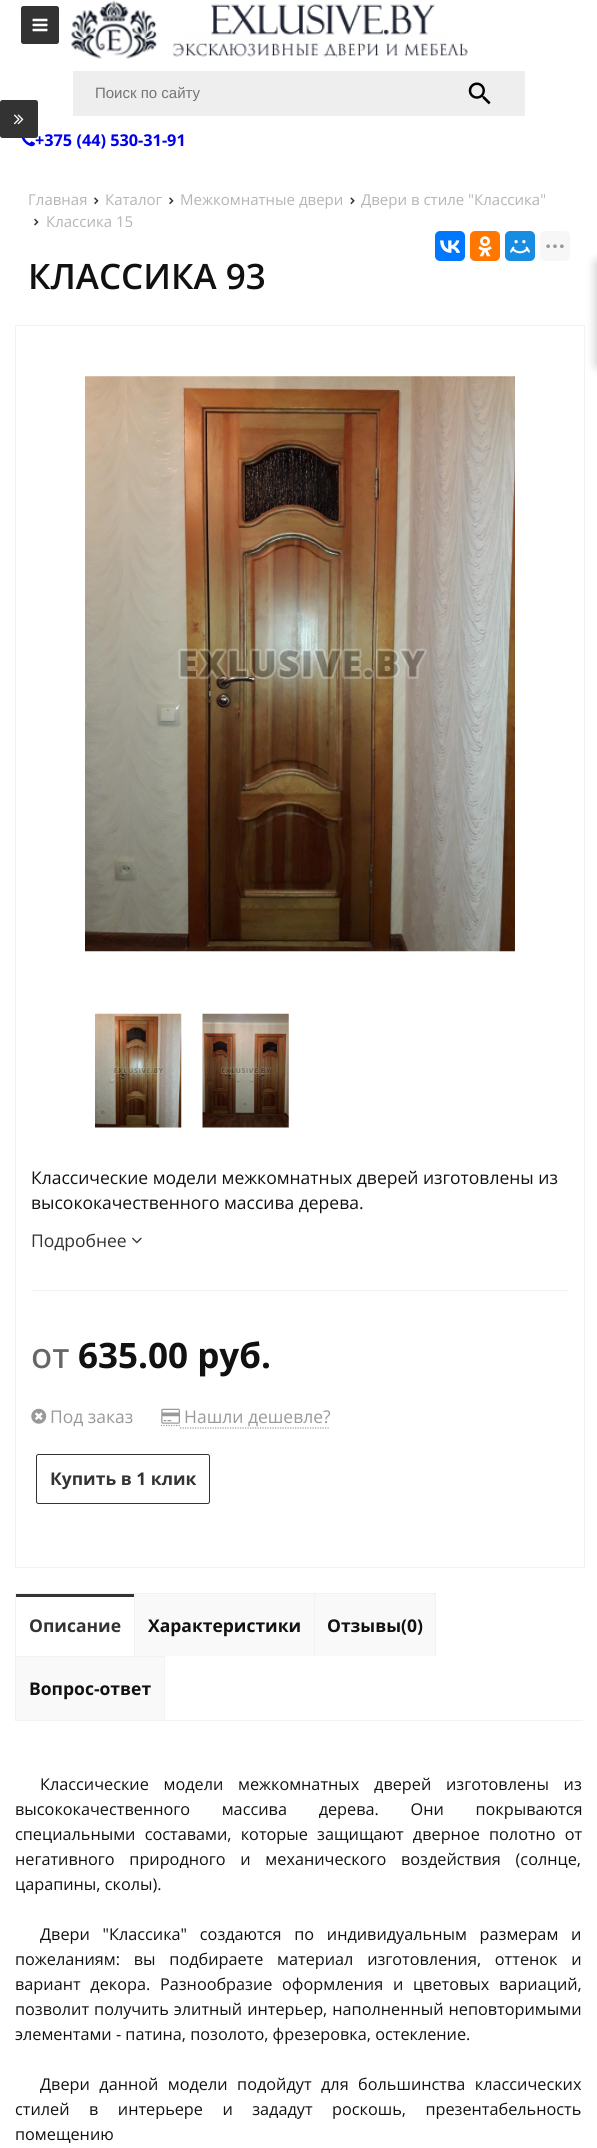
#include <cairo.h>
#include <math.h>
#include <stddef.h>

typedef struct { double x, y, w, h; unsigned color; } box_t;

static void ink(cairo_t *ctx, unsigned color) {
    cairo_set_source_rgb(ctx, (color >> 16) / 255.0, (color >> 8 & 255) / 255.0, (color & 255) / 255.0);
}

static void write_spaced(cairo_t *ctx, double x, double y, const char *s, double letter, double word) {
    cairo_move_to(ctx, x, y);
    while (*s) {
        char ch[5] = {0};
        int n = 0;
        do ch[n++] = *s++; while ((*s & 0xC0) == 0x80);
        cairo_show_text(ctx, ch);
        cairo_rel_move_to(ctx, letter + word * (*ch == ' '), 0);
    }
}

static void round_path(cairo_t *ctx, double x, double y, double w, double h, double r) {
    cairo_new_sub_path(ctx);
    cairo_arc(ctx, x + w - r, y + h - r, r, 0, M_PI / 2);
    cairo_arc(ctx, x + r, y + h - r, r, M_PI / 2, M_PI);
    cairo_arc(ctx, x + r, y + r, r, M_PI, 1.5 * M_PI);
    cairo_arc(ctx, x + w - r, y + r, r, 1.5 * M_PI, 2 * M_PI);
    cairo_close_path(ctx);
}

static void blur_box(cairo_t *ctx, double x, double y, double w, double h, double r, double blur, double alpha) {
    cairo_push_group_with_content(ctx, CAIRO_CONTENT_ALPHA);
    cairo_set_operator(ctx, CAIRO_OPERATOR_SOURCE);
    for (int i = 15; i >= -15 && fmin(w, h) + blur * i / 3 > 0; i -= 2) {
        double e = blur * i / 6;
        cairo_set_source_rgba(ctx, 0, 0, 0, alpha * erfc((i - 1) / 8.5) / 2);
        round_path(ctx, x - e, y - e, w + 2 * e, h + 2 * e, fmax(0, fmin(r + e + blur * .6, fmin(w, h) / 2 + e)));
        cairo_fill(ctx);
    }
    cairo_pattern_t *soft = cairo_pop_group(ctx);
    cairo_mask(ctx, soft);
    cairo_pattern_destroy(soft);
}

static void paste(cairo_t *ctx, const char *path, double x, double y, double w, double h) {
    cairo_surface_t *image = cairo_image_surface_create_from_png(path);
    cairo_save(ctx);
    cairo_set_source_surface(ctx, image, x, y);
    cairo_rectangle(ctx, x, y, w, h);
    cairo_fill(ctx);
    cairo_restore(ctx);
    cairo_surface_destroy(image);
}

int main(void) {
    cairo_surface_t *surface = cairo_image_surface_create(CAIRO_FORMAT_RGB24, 597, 2148);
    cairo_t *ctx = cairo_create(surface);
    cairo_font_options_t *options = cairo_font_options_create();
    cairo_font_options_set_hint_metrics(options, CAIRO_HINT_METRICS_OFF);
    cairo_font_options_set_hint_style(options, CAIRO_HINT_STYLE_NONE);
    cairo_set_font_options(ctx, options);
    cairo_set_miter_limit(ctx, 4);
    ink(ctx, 0xFFFFFF);
    cairo_paint(ctx);
    ink(ctx, 0x333333);
    round_path(ctx, 21, 6, 38, 38, 2.5);
    cairo_fill(ctx);
    paste(ctx, "media/1.png", 32, 18, 16, 14);
    paste(ctx, "media/2.png", 71, 0, 397, 59);
    ink(ctx, 0xEEEEEE);
    cairo_rectangle(ctx, 73, 71, 452, 45);
    cairo_fill(ctx);
    cairo_select_font_face(ctx, "Liberation Sans", CAIRO_FONT_SLANT_NORMAL, CAIRO_FONT_WEIGHT_NORMAL);
    cairo_set_font_size(ctx, 15);
    ink(ctx, 0x757575);
    cairo_move_to(ctx, 95, 98);
    cairo_show_text(ctx, "Поиск по сайту");
    paste(ctx, "media/3.png", 468, 82, 23, 23);
    paste(ctx, "media/4.png", 21, 138, 14, 9);
    cairo_select_font_face(ctx, "Open Sans", CAIRO_FONT_SLANT_NORMAL, CAIRO_FONT_WEIGHT_BOLD);
    cairo_set_font_size(ctx, 16.25);
    ink(ctx, 0x0000EE);
    cairo_move_to(ctx, 35, 146);
    cairo_show_text(ctx, "+375 (44) 530-31-91");
    cairo_select_font_face(ctx, "Open Sans", CAIRO_FONT_SLANT_NORMAL, CAIRO_FONT_WEIGHT_NORMAL);
    cairo_set_font_size(ctx, 15);
    ink(ctx, 0xB6B5B5);
    cairo_move_to(ctx, 28, 205);
    cairo_show_text(ctx, "Главная");
    paste(ctx, "media/5.png", 94, 197, 5, 8);
    cairo_move_to(ctx, 105, 205);
    cairo_show_text(ctx, "Каталог");
    paste(ctx, "media/5.png", 169, 197, 5, 8);
    cairo_move_to(ctx, 180, 205);
    cairo_show_text(ctx, "Межкомнатные двери");
    paste(ctx, "media/6.png", 350, 197, 5, 8);
    cairo_move_to(ctx, 361, 205);
    cairo_show_text(ctx, "Двери в стиле \"Классика\"");
    paste(ctx, "media/7.png", 34, 218, 5, 8);
    cairo_move_to(ctx, 46, 227);
    cairo_show_text(ctx, "Классика 15");
    ink(ctx, 0x0077FF);
    round_path(ctx, 435, 231, 30, 30, 5);
    cairo_fill(ctx);
    paste(ctx, "media/8.png", 440, 240, 20, 13);
    ink(ctx, 0xFF7700);
    round_path(ctx, 470, 231, 30, 30, 5);
    cairo_fill(ctx);
    paste(ctx, "media/9.png", 478, 236, 14, 21);
    ink(ctx, 0x168DE2);
    round_path(ctx, 505, 231, 30, 30, 5);
    cairo_fill(ctx);
    paste(ctx, "media/10.png", 510, 240, 20, 14);
    ink(ctx, 0xF7F7F7);
    round_path(ctx, 540, 231, 30, 30, 5);
    cairo_fill(ctx);
    paste(ctx, "media/11.png", 546, 244, 18, 5);
    cairo_select_font_face(ctx, "Open Sans SemiBold", CAIRO_FONT_SLANT_NORMAL, CAIRO_FONT_WEIGHT_NORMAL);
    cairo_set_font_size(ctx, 35);
    ink(ctx, 0x111111);
    cairo_move_to(ctx, 28, 289);
    cairo_show_text(ctx, "КЛАССИКА 93");
    cairo_rectangle(ctx, 15.5, 325.5, 569, 1242);
    ink(ctx, 0xF2F2F2);
    cairo_set_line_width(ctx, 1);
    cairo_stroke(ctx);
    ink(ctx, 0x000000);
    blur_box(ctx, 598, 263, 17, 102, 0, 6, 0.3);
    ink(ctx, 0x333333);
    round_path(ctx, 0, 100, 38, 38, 2.5);
    cairo_fill(ctx);
    paste(ctx, "media/12.png", 13, 114, 11, 11);
    paste(ctx, "media/13.png", 85, 376, 430, 576);
    paste(ctx, "media/14.png", 95, 1013, 87, 115);
    paste(ctx, "media/15.png", 202, 1013, 87, 115);
    ink(ctx, 0xF2F2F2);
    cairo_rectangle(ctx, 31, 1290, 538, 1);
    cairo_fill(ctx);
    cairo_select_font_face(ctx, "Open Sans", CAIRO_FONT_SLANT_NORMAL, CAIRO_FONT_WEIGHT_NORMAL);
    cairo_set_font_size(ctx, 17.5);
    ink(ctx, 0x111111);
    cairo_move_to(ctx, 31, 1184);
    cairo_show_text(ctx, "Классические модели межкомнатных дверей изготовлены из");
    cairo_move_to(ctx, 31, 1209);
    cairo_show_text(ctx, "высококачественного массива дерева.");
    ink(ctx, 0x333333);
    cairo_move_to(ctx, 31, 1247);
    cairo_show_text(ctx, "Подробнее");
    paste(ctx, "media/16.png", 132, 1237, 10, 7);
    cairo_select_font_face(ctx, "Open Sans Medium", CAIRO_FONT_SLANT_NORMAL, CAIRO_FONT_WEIGHT_NORMAL);
    cairo_set_font_size(ctx, 35);
    ink(ctx, 0x666666);
    cairo_move_to(ctx, 31, 1368);
    cairo_show_text(ctx, "от");
    cairo_select_font_face(ctx, "Open Sans", CAIRO_FONT_SLANT_NORMAL, CAIRO_FONT_WEIGHT_BOLD);
    ink(ctx, 0x111111);
    cairo_move_to(ctx, 78, 1368);
    cairo_show_text(ctx, "635.00 руб.");
    paste(ctx, "media/17.png", 31, 1408, 16, 16);
    cairo_select_font_face(ctx, "Open Sans", CAIRO_FONT_SLANT_NORMAL, CAIRO_FONT_WEIGHT_NORMAL);
    cairo_set_font_size(ctx, 17.5);
    ink(ctx, 0x999999);
    cairo_move_to(ctx, 50, 1423);
    cairo_show_text(ctx, "Под заказ");
    cairo_new_path(ctx);
    cairo_move_to(ctx, 161, 1425.5);
    cairo_line_to(ctx, 180, 1425.5);
    cairo_set_line_width(ctx, 1.2);
    cairo_set_dash(ctx, (double[]){1.25, 1.25}, 2, 0);
    cairo_stroke(ctx);
    cairo_new_path(ctx);
    cairo_move_to(ctx, 180, 1428);
    cairo_line_to(ctx, 330, 1428);
    cairo_stroke(ctx);
    paste(ctx, "media/18.png", 161, 1408, 19, 16);
    cairo_move_to(ctx, 184, 1423);
    cairo_show_text(ctx, "Нашли дешевле?");
    round_path(ctx, 36.5, 1454.5, 173, 49, 2);
    ink(ctx, 0x333333);
    cairo_set_line_width(ctx, 1);
    cairo_set_dash(ctx, NULL, 0, 0);
    cairo_stroke(ctx);
    cairo_select_font_face(ctx, "Open Sans", CAIRO_FONT_SLANT_NORMAL, CAIRO_FONT_WEIGHT_BOLD);
    cairo_move_to(ctx, 50, 1485);
    cairo_show_text(ctx, "Купить в 1 клик");
    {
        static const box_t items[] = {
            {15, 1720, 568, 1, 0xF2F2F2},
            {15, 1593, 421, 1, 0xF2F2F2},
            {15, 1593, 1, 63, 0xF2F2F2},
            {16, 1594, 118, 3, 0x333333},
        };
        for (size_t i = 0; i < sizeof items / sizeof *items; i++) {
            ink(ctx, items[i].color);
            cairo_rectangle(ctx, items[i].x, items[i].y, items[i].w, items[i].h);
            cairo_fill(ctx);
        }
    }
    cairo_move_to(ctx, 29, 1632);
    cairo_show_text(ctx, "Описание");
    ink(ctx, 0xF9F9FA);
    cairo_rectangle(ctx, 135, 1594, 179, 62);
    cairo_fill(ctx);
    ink(ctx, 0xF2F2F2);
    cairo_rectangle(ctx, 134, 1593, 1, 63);
    cairo_fill(ctx);
    ink(ctx, 0x111111);
    cairo_move_to(ctx, 148, 1632);
    cairo_show_text(ctx, "Характеристики");
    {
        static const box_t items[] = {
            {315, 1594, 120, 62, 0xF9F9FA},
            {435, 1593, 1, 63, 0xF2F2F2},
            {314, 1593, 1, 63, 0xF2F2F2},
        };
        for (size_t i = 0; i < sizeof items / sizeof *items; i++) {
            ink(ctx, items[i].color);
            cairo_rectangle(ctx, items[i].x, items[i].y, items[i].w, items[i].h);
            cairo_fill(ctx);
        }
    }
    ink(ctx, 0x111111);
    cairo_move_to(ctx, 327, 1632);
    cairo_show_text(ctx, "Отзывы(0)");
    {
        static const box_t items[] = {
            {16, 1657, 148, 63, 0xF9F9FA},
            {15, 1656, 150, 1, 0xF2F2F2},
            {164, 1656, 1, 64, 0xF2F2F2},
            {15, 1656, 1, 64, 0xF2F2F2},
        };
        for (size_t i = 0; i < sizeof items / sizeof *items; i++) {
            ink(ctx, items[i].color);
            cairo_rectangle(ctx, items[i].x, items[i].y, items[i].w, items[i].h);
            cairo_fill(ctx);
        }
    }
    ink(ctx, 0x111111);
    cairo_move_to(ctx, 29, 1695);
    cairo_show_text(ctx, "Вопрос-ответ");
    cairo_select_font_face(ctx, "Open Sans", CAIRO_FONT_SLANT_NORMAL, CAIRO_FONT_WEIGHT_NORMAL);
    cairo_set_font_size(ctx, 16.25);
    write_spaced(ctx, 40, 1790, "Классические модели межкомнатных дверей изготовлены из", 0, 10.5);
    write_spaced(ctx, 15, 1815, "высококачественного массива дерева. Они покрываются", 0, 27.5);
    write_spaced(ctx, 15, 1840, "специальными составами, которые защищают дверное полотно от", 0, 5);
    write_spaced(ctx, 15, 1865, "негативного природного и механического воздействия (солнце,", 0, 10.5);
    cairo_move_to(ctx, 15, 1890);
    cairo_show_text(ctx, "царапины, сколы).");
    write_spaced(ctx, 40, 1940, "Двери \"Классика\" создаются по индивидуальным размерам и", 0, 8.5);
    write_spaced(ctx, 15, 1965, "пожеланиям: вы подбираете материал изготовления, оттенок и", 0, 9.5);
    write_spaced(ctx, 15, 1990, "вариант декора. Разнообразие оформления и цветовых вариаций,", 0, 5.5);
    write_spaced(ctx, 15, 2015, "позволит получить элитный интерьер, наполненный неповторимыми", 0, 0.75);
    cairo_move_to(ctx, 15, 2040);
    cairo_show_text(ctx, "элементами - патина, позолото, фрезеровка, остекление.");
    write_spaced(ctx, 40, 2090, "Двери данной модели подойдут для большинства классических", 0, 5.25);
    write_spaced(ctx, 15, 2115, "стилей в интерьере и зададут роскошь, презентабельность", 0, 15.25);
    cairo_move_to(ctx, 15, 2140);
    cairo_show_text(ctx, "помещению");
    cairo_surface_write_to_png(surface, "image.png");
    cairo_font_options_destroy(options);
    cairo_destroy(ctx);
    cairo_surface_destroy(surface);
    return 0;
}
